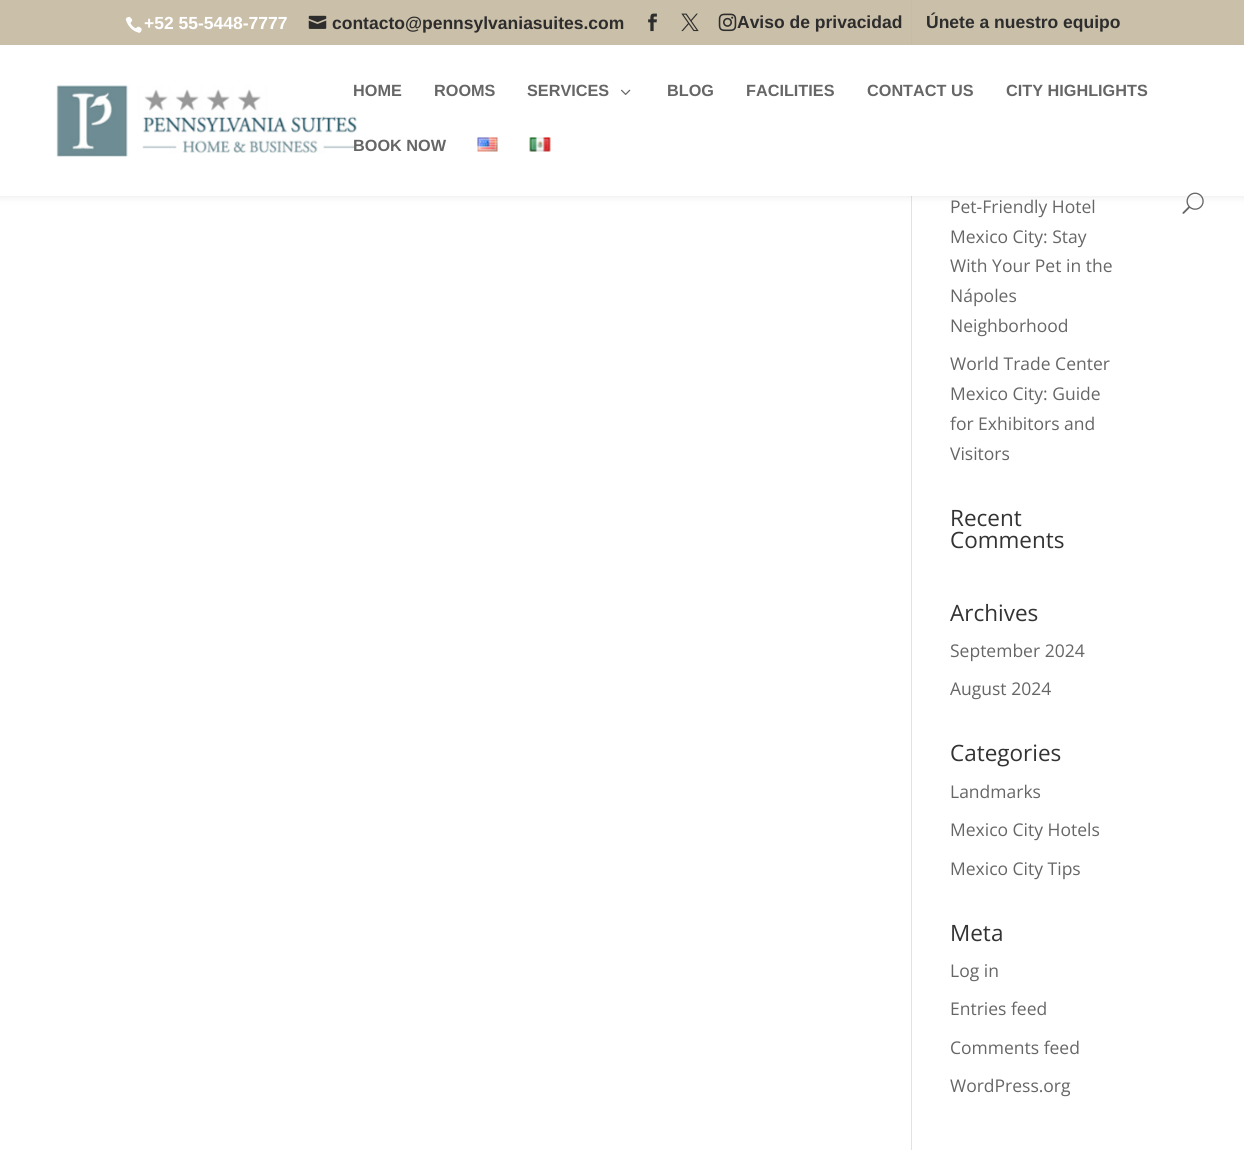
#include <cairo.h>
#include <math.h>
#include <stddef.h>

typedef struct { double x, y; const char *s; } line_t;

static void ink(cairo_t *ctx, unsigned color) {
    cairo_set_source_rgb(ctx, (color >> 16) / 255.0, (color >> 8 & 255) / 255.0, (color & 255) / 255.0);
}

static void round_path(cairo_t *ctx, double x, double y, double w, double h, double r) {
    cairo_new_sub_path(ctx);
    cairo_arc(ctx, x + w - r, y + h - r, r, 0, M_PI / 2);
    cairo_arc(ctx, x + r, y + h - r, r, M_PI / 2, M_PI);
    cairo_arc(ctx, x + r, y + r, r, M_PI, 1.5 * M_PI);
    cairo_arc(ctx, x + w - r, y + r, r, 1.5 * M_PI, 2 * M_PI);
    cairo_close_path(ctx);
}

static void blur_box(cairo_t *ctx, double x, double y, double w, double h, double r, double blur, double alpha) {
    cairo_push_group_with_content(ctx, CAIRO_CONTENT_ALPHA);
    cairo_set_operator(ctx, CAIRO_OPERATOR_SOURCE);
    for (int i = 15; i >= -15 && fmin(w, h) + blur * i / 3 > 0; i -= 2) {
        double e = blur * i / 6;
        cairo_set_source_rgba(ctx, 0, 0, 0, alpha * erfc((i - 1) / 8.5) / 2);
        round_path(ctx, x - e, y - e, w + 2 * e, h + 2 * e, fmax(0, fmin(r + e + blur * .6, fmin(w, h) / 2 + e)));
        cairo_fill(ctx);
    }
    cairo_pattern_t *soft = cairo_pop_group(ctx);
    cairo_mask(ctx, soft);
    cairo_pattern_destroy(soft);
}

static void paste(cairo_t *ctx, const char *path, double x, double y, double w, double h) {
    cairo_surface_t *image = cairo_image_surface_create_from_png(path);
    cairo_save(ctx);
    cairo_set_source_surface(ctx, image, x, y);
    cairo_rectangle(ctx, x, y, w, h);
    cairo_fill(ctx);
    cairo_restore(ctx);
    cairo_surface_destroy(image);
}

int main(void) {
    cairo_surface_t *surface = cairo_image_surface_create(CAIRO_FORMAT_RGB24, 1244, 1150);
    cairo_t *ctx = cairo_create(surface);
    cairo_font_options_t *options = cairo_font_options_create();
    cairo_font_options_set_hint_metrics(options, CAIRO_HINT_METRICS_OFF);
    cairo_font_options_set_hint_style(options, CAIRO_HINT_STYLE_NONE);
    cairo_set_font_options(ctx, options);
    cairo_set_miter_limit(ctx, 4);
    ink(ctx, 0xFFFFFF);
    cairo_paint(ctx);
    ink(ctx, 0xE2E2E2);
    cairo_rectangle(ctx, 911, 0, 1, 1150);
    cairo_fill(ctx);
    ink(ctx, 0x000000);
    blur_box(ctx, 0, 45, 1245, 151, 0, 4.5, 0.1);
    cairo_set_source_rgba(ctx, 0.765, 0.718, 0.62, 0.88);
    cairo_rectangle(ctx, 0, 0, 1244, 45);
    cairo_fill(ctx);
    paste(ctx, "media/1.png", 125, 16, 17, 17);
    cairo_select_font_face(ctx, "Liberation Sans", CAIRO_FONT_SLANT_NORMAL, CAIRO_FONT_WEIGHT_BOLD);
    cairo_set_font_size(ctx, 17.5);
    ink(ctx, 0xFFFFFF);
    cairo_move_to(ctx, 144, 29);
    cairo_show_text(ctx, "+52 55-5448-7777");
    paste(ctx, "media/2.png", 308, 15, 19, 14);
    ink(ctx, 0x2D2D2D);
    cairo_move_to(ctx, 332, 29);
    cairo_show_text(ctx, "contacto@pennsylvaniasuites.com");
    paste(ctx, "media/3.png", 648, 13, 9, 19);
    paste(ctx, "media/4.png", 681, 13, 18, 19);
    paste(ctx, "media/5.png", 718, 13, 19, 19);
    cairo_move_to(ctx, 737, 28);
    cairo_show_text(ctx, "Aviso de privacidad");
    cairo_move_to(ctx, 926, 28);
    cairo_show_text(ctx, "Únete a nuestro equipo");
    ink(ctx, 0xFFFFFF);
    cairo_rectangle(ctx, 0, 45, 1244, 151);
    cairo_fill(ctx);
    paste(ctx, "media/6.png", 56, 85, 301, 72);
    cairo_set_font_size(ctx, 16.25);
    ink(ctx, 0x666666);
    {
        static const line_t items[] = {
            {353, 96, "HOME"},
            {434, 96, "ROOMS"},
            {527, 96, "SERVICES"},
        };
        for (size_t i = 0; i < sizeof items / sizeof *items; i++) {
            cairo_move_to(ctx, items[i].x, items[i].y);
            cairo_show_text(ctx, items[i].s);
        }
    }
    paste(ctx, "media/7.png", 621, 89, 10, 6);
    {
        static const line_t items[] = {
            {667, 96, "BLOG"},
            {746, 96, "FACILITIES"},
            {867, 96, "CONTACT US"},
            {1006, 96, "CITY HIGHLIGHTS"},
            {353, 151, "BOOK NOW"},
        };
        for (size_t i = 0; i < sizeof items / sizeof *items; i++) {
            cairo_move_to(ctx, items[i].x, items[i].y);
            cairo_show_text(ctx, items[i].s);
        }
    }
    paste(ctx, "media/8.png", 477, 137, 21, 15);
    paste(ctx, "media/9.png", 529, 137, 22, 15);
    paste(ctx, "media/10.png", 1182, 192, 22, 22);
    cairo_select_font_face(ctx, "Open Sans", CAIRO_FONT_SLANT_NORMAL, CAIRO_FONT_WEIGHT_NORMAL);
    cairo_set_font_size(ctx, 17.5);
    {
        static const line_t items[] = {
            {950, 213, "Pet-Friendly Hotel"},
            {950, 243, "Mexico City: Stay"},
            {950, 272, "With Your Pet in the"},
            {950, 302, "Nápoles"},
            {950, 332, "Neighborhood"},
            {950, 370, "World Trade Center"},
            {950, 400, "Mexico City: Guide"},
            {950, 430, "for Exhibitors and"},
            {950, 460, "Visitors"},
        };
        for (size_t i = 0; i < sizeof items / sizeof *items; i++) {
            cairo_move_to(ctx, items[i].x, items[i].y);
            cairo_show_text(ctx, items[i].s);
        }
    }
    cairo_set_font_size(ctx, 22.5);
    ink(ctx, 0x333333);
    {
        static const line_t items[] = {
            {950, 526, "Recent"},
            {950, 548, "Comments"},
            {950, 621, "Archives"},
        };
        for (size_t i = 0; i < sizeof items / sizeof *items; i++) {
            cairo_move_to(ctx, items[i].x, items[i].y);
            cairo_show_text(ctx, items[i].s);
        }
    }
    cairo_set_font_size(ctx, 17.5);
    ink(ctx, 0x666666);
    cairo_move_to(ctx, 950, 657);
    cairo_show_text(ctx, "September 2024");
    cairo_move_to(ctx, 950, 695);
    cairo_show_text(ctx, "August 2024");
    cairo_set_font_size(ctx, 22.5);
    ink(ctx, 0x333333);
    cairo_move_to(ctx, 950, 761);
    cairo_show_text(ctx, "Categories");
    cairo_set_font_size(ctx, 17.5);
    ink(ctx, 0x666666);
    {
        static const line_t items[] = {
            {950, 798, "Landmarks"},
            {950, 836, "Mexico City Hotels"},
            {950, 875, "Mexico City Tips"},
        };
        for (size_t i = 0; i < sizeof items / sizeof *items; i++) {
            cairo_move_to(ctx, items[i].x, items[i].y);
            cairo_show_text(ctx, items[i].s);
        }
    }
    cairo_set_font_size(ctx, 22.5);
    ink(ctx, 0x333333);
    cairo_move_to(ctx, 950, 941);
    cairo_show_text(ctx, "Meta");
    cairo_set_font_size(ctx, 17.5);
    ink(ctx, 0x666666);
    {
        static const line_t items[] = {
            {950, 977, "Log in"},
            {950, 1015, "Entries feed"},
            {950, 1054, "Comments feed"},
            {950, 1092, "WordPress.org"},
        };
        for (size_t i = 0; i < sizeof items / sizeof *items; i++) {
            cairo_move_to(ctx, items[i].x, items[i].y);
            cairo_show_text(ctx, items[i].s);
        }
    }
    cairo_surface_write_to_png(surface, "image.png");
    cairo_font_options_destroy(options);
    cairo_destroy(ctx);
    cairo_surface_destroy(surface);
    return 0;
}
